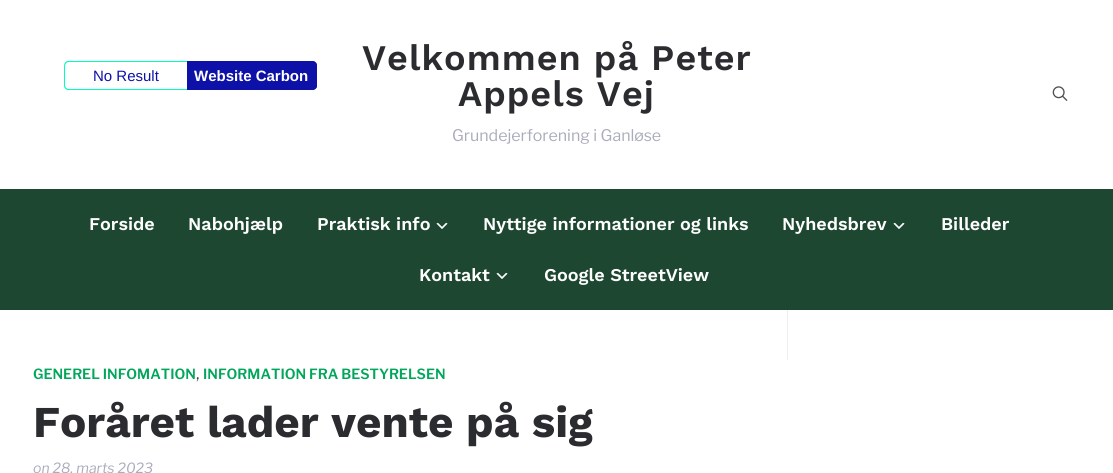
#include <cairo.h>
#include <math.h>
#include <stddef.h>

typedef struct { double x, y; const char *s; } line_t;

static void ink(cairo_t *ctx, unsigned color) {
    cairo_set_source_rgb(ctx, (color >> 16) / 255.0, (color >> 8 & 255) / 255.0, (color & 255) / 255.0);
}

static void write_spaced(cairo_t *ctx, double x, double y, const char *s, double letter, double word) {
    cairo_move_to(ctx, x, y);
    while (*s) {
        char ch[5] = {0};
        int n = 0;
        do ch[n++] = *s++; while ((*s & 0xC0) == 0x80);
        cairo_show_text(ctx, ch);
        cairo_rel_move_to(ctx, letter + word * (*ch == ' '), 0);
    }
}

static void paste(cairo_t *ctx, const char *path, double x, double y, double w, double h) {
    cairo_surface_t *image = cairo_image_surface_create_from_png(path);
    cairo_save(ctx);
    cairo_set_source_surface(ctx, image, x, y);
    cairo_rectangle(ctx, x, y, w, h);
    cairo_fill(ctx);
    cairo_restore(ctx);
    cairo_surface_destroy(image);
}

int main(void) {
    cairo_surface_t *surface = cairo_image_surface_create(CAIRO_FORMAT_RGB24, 1113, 473);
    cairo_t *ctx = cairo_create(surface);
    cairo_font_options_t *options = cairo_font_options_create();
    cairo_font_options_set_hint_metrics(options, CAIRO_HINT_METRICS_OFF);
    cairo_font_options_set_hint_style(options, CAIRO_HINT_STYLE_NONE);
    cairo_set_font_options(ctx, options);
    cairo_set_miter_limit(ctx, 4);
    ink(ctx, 0xFFFFFF);
    cairo_paint(ctx);
    ink(ctx, 0x00FFBC);
    cairo_set_fill_rule(ctx, CAIRO_FILL_RULE_EVEN_ODD);
    cairo_new_path(ctx);
    cairo_move_to(ctx, 68, 61);
    cairo_line_to(ctx, 187, 61);
    cairo_line_to(ctx, 187, 90);
    cairo_line_to(ctx, 68, 90);
    cairo_curve_to(ctx, 66, 90, 64, 88, 64, 86);
    cairo_line_to(ctx, 64, 66);
    cairo_curve_to(ctx, 64, 63, 66, 61, 68, 61);
    cairo_close_path(ctx);
    cairo_move_to(ctx, 68, 62);
    cairo_line_to(ctx, 187, 62);
    cairo_line_to(ctx, 187, 89);
    cairo_line_to(ctx, 68, 89);
    cairo_curve_to(ctx, 67, 89, 65, 87, 65, 86);
    cairo_line_to(ctx, 65, 66);
    cairo_curve_to(ctx, 65, 64, 67, 62, 68, 62);
    cairo_close_path(ctx);
    cairo_fill(ctx);
    cairo_select_font_face(ctx, "Liberation Sans", CAIRO_FONT_SLANT_NORMAL, CAIRO_FONT_WEIGHT_NORMAL);
    cairo_set_font_size(ctx, 15);
    ink(ctx, 0x0E11A8);
    cairo_move_to(ctx, 93, 81);
    cairo_show_text(ctx, "No Result");
    cairo_new_path(ctx);
    cairo_move_to(ctx, 187, 61);
    cairo_line_to(ctx, 312, 61);
    cairo_curve_to(ctx, 315, 61, 317, 63, 317, 66);
    cairo_line_to(ctx, 317, 85);
    cairo_curve_to(ctx, 317, 88, 315, 90, 312, 90);
    cairo_line_to(ctx, 187, 90);
    cairo_close_path(ctx);
    cairo_fill(ctx);
    cairo_new_path(ctx);
    cairo_move_to(ctx, 187, 61);
    cairo_line_to(ctx, 312, 61);
    cairo_curve_to(ctx, 315, 61, 317, 63, 317, 66);
    cairo_line_to(ctx, 317, 86);
    cairo_curve_to(ctx, 317, 88, 315, 90, 312, 90);
    cairo_line_to(ctx, 187, 90);
    cairo_close_path(ctx);
    cairo_move_to(ctx, 187, 62);
    cairo_line_to(ctx, 312, 62);
    cairo_curve_to(ctx, 314, 62, 316, 64, 316, 66);
    cairo_line_to(ctx, 316, 86);
    cairo_curve_to(ctx, 316, 87, 314, 89, 312, 89);
    cairo_line_to(ctx, 187, 89);
    cairo_close_path(ctx);
    cairo_fill(ctx);
    cairo_select_font_face(ctx, "Liberation Sans", CAIRO_FONT_SLANT_NORMAL, CAIRO_FONT_WEIGHT_BOLD);
    ink(ctx, 0xFFFFFF);
    cairo_move_to(ctx, 194, 81);
    cairo_show_text(ctx, "Website Carbon");
    cairo_select_font_face(ctx, "Work Sans SemiBold", CAIRO_FONT_SLANT_NORMAL, CAIRO_FONT_WEIGHT_NORMAL);
    cairo_set_font_size(ctx, 36);
    ink(ctx, 0x2B2C30);
    write_spaced(ctx, 362, 70, "Velkommen på Peter", 1, 0);
    write_spaced(ctx, 458, 106, "Appels Vej", 1, 0);
    cairo_select_font_face(ctx, "Libre Franklin", CAIRO_FONT_SLANT_NORMAL, CAIRO_FONT_WEIGHT_NORMAL);
    cairo_set_font_size(ctx, 16);
    ink(ctx, 0xA9ADBB);
    cairo_move_to(ctx, 452, 141);
    cairo_show_text(ctx, "Grundejerforening i Ganløse");
    paste(ctx, "media/1.png", 1052, 86, 16, 15);
    ink(ctx, 0x1D4730);
    cairo_rectangle(ctx, 0, 189, 1113, 121);
    cairo_fill(ctx);
    cairo_select_font_face(ctx, "Work Sans SemiBold", CAIRO_FONT_SLANT_NORMAL, CAIRO_FONT_WEIGHT_NORMAL);
    cairo_set_font_size(ctx, 18);
    ink(ctx, 0xFFFFFF);
    {
        static const line_t items[] = {
            {89, 230, "Forside"},
            {188, 230, "Nabohjælp"},
            {317, 230, "Praktisk info"},
        };
        for (size_t i = 0; i < sizeof items / sizeof *items; i++) {
            cairo_move_to(ctx, items[i].x, items[i].y);
            cairo_show_text(ctx, items[i].s);
        }
    }
    paste(ctx, "media/2.png", 436, 222, 12, 7);
    cairo_move_to(ctx, 483, 230);
    cairo_show_text(ctx, "Nyttige informationer og links");
    cairo_move_to(ctx, 782, 230);
    cairo_show_text(ctx, "Nyhedsbrev");
    paste(ctx, "media/2.png", 893, 222, 12, 7);
    cairo_move_to(ctx, 941, 230);
    cairo_show_text(ctx, "Billeder");
    cairo_move_to(ctx, 419, 281);
    cairo_show_text(ctx, "Kontakt");
    paste(ctx, "media/2.png", 496, 272, 12, 7);
    cairo_move_to(ctx, 544, 281);
    cairo_show_text(ctx, "Google StreetView");
    ink(ctx, 0xEEEEEE);
    cairo_rectangle(ctx, 787, 310, 1, 50);
    cairo_fill(ctx);
    cairo_select_font_face(ctx, "Libre Franklin SemiBold", CAIRO_FONT_SLANT_NORMAL, CAIRO_FONT_WEIGHT_NORMAL);
    cairo_set_font_size(ctx, 14);
    ink(ctx, 0x00A65A);
    cairo_move_to(ctx, 33, 379);
    cairo_show_text(ctx, "GENEREL INFOMATION");
    cairo_select_font_face(ctx, "Libre Franklin", CAIRO_FONT_SLANT_NORMAL, CAIRO_FONT_WEIGHT_NORMAL);
    cairo_set_font_size(ctx, 16);
    ink(ctx, 0x444444);
    cairo_move_to(ctx, 196, 379);
    cairo_show_text(ctx, ",");
    cairo_select_font_face(ctx, "Libre Franklin SemiBold", CAIRO_FONT_SLANT_NORMAL, CAIRO_FONT_WEIGHT_NORMAL);
    cairo_set_font_size(ctx, 14);
    ink(ctx, 0x00A65A);
    cairo_move_to(ctx, 203, 379);
    cairo_show_text(ctx, "INFORMATION FRA BESTYRELSEN");
    cairo_select_font_face(ctx, "Work Sans", CAIRO_FONT_SLANT_NORMAL, CAIRO_FONT_WEIGHT_BOLD);
    cairo_set_font_size(ctx, 44);
    ink(ctx, 0x2B2C30);
    cairo_move_to(ctx, 33, 437);
    cairo_show_text(ctx, "Foråret lader vente på sig");
    cairo_select_font_face(ctx, "Libre Franklin", CAIRO_FONT_SLANT_ITALIC, CAIRO_FONT_WEIGHT_NORMAL);
    cairo_set_font_size(ctx, 14);
    ink(ctx, 0xA9ADBB);
    cairo_move_to(ctx, 33, 473);
    cairo_show_text(ctx, "on 28. marts 2023");
    cairo_surface_write_to_png(surface, "image.png");
    cairo_font_options_destroy(options);
    cairo_destroy(ctx);
    cairo_surface_destroy(surface);
    return 0;
}
